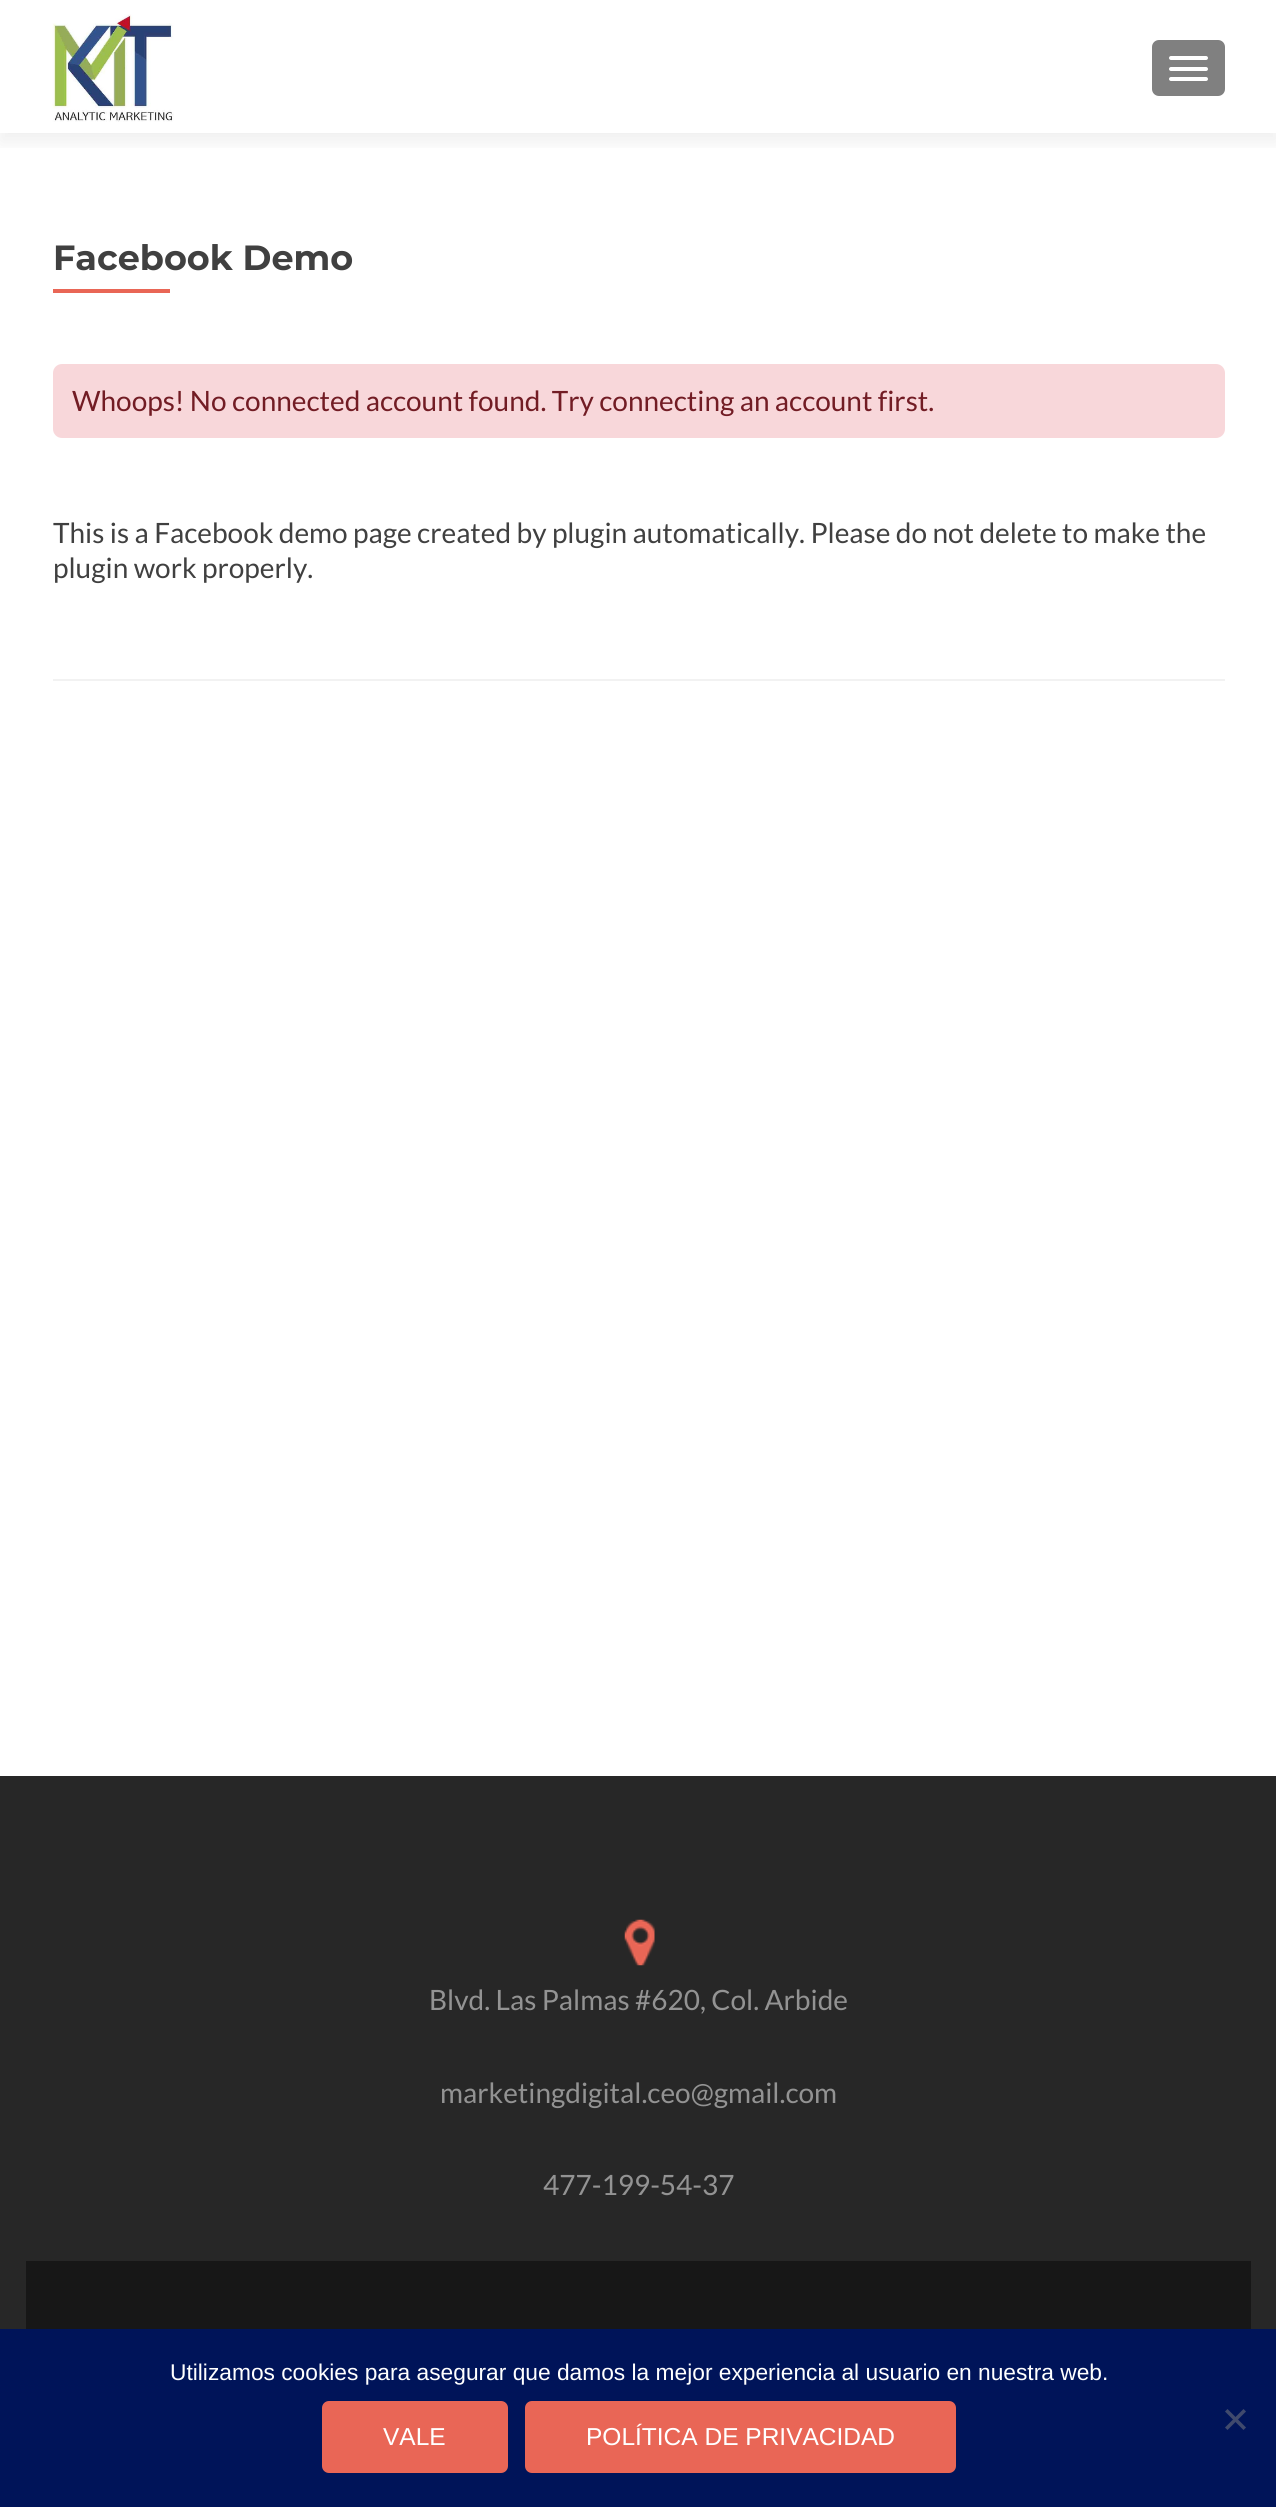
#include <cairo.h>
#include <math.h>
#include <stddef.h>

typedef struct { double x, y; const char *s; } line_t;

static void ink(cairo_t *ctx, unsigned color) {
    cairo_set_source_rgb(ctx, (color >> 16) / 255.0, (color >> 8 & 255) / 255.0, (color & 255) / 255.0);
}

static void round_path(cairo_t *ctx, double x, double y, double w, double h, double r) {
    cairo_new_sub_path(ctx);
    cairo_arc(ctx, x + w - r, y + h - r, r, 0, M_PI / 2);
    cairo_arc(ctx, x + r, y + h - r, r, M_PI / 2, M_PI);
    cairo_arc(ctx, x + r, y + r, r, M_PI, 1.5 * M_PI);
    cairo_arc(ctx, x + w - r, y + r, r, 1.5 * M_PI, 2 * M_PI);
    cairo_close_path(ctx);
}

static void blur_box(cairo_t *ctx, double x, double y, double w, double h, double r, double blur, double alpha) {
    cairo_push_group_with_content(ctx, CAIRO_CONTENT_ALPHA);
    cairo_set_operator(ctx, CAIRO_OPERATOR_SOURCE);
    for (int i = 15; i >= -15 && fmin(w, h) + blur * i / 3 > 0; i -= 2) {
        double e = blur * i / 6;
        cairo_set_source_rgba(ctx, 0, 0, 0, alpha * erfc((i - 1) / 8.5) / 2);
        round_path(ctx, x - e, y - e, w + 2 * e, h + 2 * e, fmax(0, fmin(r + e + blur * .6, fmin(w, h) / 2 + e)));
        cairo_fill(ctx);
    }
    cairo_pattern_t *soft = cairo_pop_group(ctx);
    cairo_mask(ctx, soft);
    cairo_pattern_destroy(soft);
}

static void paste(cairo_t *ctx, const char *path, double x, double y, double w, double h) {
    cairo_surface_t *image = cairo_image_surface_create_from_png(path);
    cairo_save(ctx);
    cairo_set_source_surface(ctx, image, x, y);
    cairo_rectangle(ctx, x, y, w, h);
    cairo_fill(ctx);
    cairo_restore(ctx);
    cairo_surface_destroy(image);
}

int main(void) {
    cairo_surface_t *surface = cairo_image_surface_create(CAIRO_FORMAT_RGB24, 1276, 2507);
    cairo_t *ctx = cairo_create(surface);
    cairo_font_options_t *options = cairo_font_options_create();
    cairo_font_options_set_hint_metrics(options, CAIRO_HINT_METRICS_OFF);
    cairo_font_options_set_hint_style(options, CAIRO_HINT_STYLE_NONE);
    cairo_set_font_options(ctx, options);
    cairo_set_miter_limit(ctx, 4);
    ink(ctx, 0xFFFFFF);
    cairo_paint(ctx);
    cairo_save(ctx);
    cairo_rectangle(ctx, 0, 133, 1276, 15);
    cairo_clip(ctx);
    ink(ctx, 0x323232);
    blur_box(ctx, 0, 9, 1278, 133, 0, 9.5, 0.08);
    cairo_restore(ctx);
    paste(ctx, "media/1.png", 52, 14, 122, 108);
    ink(ctx, 0x808080);
    round_path(ctx, 1152, 40, 73, 56, 7);
    cairo_fill(ctx);
    ink(ctx, 0xFFFFFF);
    round_path(ctx, 1169, 56, 39, 4, 2);
    cairo_fill(ctx);
    round_path(ctx, 1169, 67, 39, 4, 2);
    cairo_fill(ctx);
    round_path(ctx, 1169, 77, 39, 4, 2);
    cairo_fill(ctx);
    ink(ctx, 0xF2F2F2);
    cairo_rectangle(ctx, 53, 679, 1172, 2);
    cairo_fill(ctx);
    cairo_select_font_face(ctx, "Montserrat", CAIRO_FONT_SLANT_NORMAL, CAIRO_FONT_WEIGHT_BOLD);
    cairo_set_font_size(ctx, 35);
    ink(ctx, 0x404040);
    cairo_move_to(ctx, 53, 270);
    cairo_show_text(ctx, "Facebook Demo");
    ink(ctx, 0xE96656);
    cairo_rectangle(ctx, 53, 289, 117, 4);
    cairo_fill(ctx);
    ink(ctx, 0xF8D7DA);
    round_path(ctx, 53, 364, 1172, 74, 9);
    cairo_fill(ctx);
    cairo_select_font_face(ctx, "Lato", CAIRO_FONT_SLANT_NORMAL, CAIRO_FONT_WEIGHT_NORMAL);
    cairo_set_font_size(ctx, 28);
    ink(ctx, 0x721C24);
    cairo_move_to(ctx, 72, 411);
    cairo_show_text(ctx, "Whoops! No connected account found. Try connecting an account first.");
    ink(ctx, 0x404040);
    cairo_move_to(ctx, 53, 543);
    cairo_show_text(ctx, "This is a Facebook demo page created by plugin automatically. Please do not delete to make the");
    cairo_move_to(ctx, 53, 578);
    cairo_show_text(ctx, "plugin work properly.");
    ink(ctx, 0x272727);
    cairo_rectangle(ctx, 0, 1776, 1276, 553);
    cairo_fill(ctx);
    paste(ctx, "media/2.png", 624, 1919, 31, 47);
    ink(ctx, 0x939393);
    {
        static const line_t items[] = {
            {429, 2010, "Blvd. Las Palmas #620, Col. Arbide"},
            {440, 2103, "marketingdigital.ceo@gmail.com"},
            {543, 2195, "477-199-54-37"},
        };
        for (size_t i = 0; i < sizeof items / sizeof *items; i++) {
            cairo_move_to(ctx, items[i].x, items[i].y);
            cairo_show_text(ctx, items[i].s);
        }
    }
    ink(ctx, 0x171717);
    cairo_rectangle(ctx, 26, 2261, 1225, 68);
    cairo_fill(ctx);
    ink(ctx, 0x001459);
    cairo_rectangle(ctx, 0, 2329, 1276, 178);
    cairo_fill(ctx);
    cairo_select_font_face(ctx, "Liberation Sans", CAIRO_FONT_SLANT_NORMAL, CAIRO_FONT_WEIGHT_NORMAL);
    cairo_set_font_size(ctx, 22.75);
    ink(ctx, 0xFFFFFF);
    cairo_move_to(ctx, 170, 2380);
    cairo_show_text(ctx, "Utilizamos cookies para asegurar que damos la mejor experiencia al usuario en nuestra web.");
    ink(ctx, 0x404A6D);
    cairo_new_path(ctx);
    cairo_move_to(ctx, 1243.5, 2409);
    cairo_line_to(ctx, 1246, 2411.5);
    cairo_line_to(ctx, 1227.5, 2430);
    cairo_line_to(ctx, 1225, 2427.5);
    cairo_close_path(ctx);
    cairo_fill(ctx);
    cairo_new_path(ctx);
    cairo_move_to(ctx, 1225, 2411.5);
    cairo_line_to(ctx, 1227.5, 2409);
    cairo_line_to(ctx, 1246, 2427.5);
    cairo_line_to(ctx, 1243.5, 2430);
    cairo_close_path(ctx);
    cairo_fill(ctx);
    ink(ctx, 0xE96656);
    round_path(ctx, 322, 2401, 186, 72, 7);
    cairo_fill(ctx);
    cairo_set_font_size(ctx, 24.5);
    ink(ctx, 0xFFFFFF);
    cairo_move_to(ctx, 383, 2445);
    cairo_show_text(ctx, "VALE");
    ink(ctx, 0xE96656);
    round_path(ctx, 525, 2401, 431, 72, 7);
    cairo_fill(ctx);
    ink(ctx, 0xFFFFFF);
    cairo_move_to(ctx, 586, 2445);
    cairo_show_text(ctx, "POLÍTICA DE PRIVACIDAD");
    cairo_surface_write_to_png(surface, "image.png");
    cairo_font_options_destroy(options);
    cairo_destroy(ctx);
    cairo_surface_destroy(surface);
    return 0;
}
